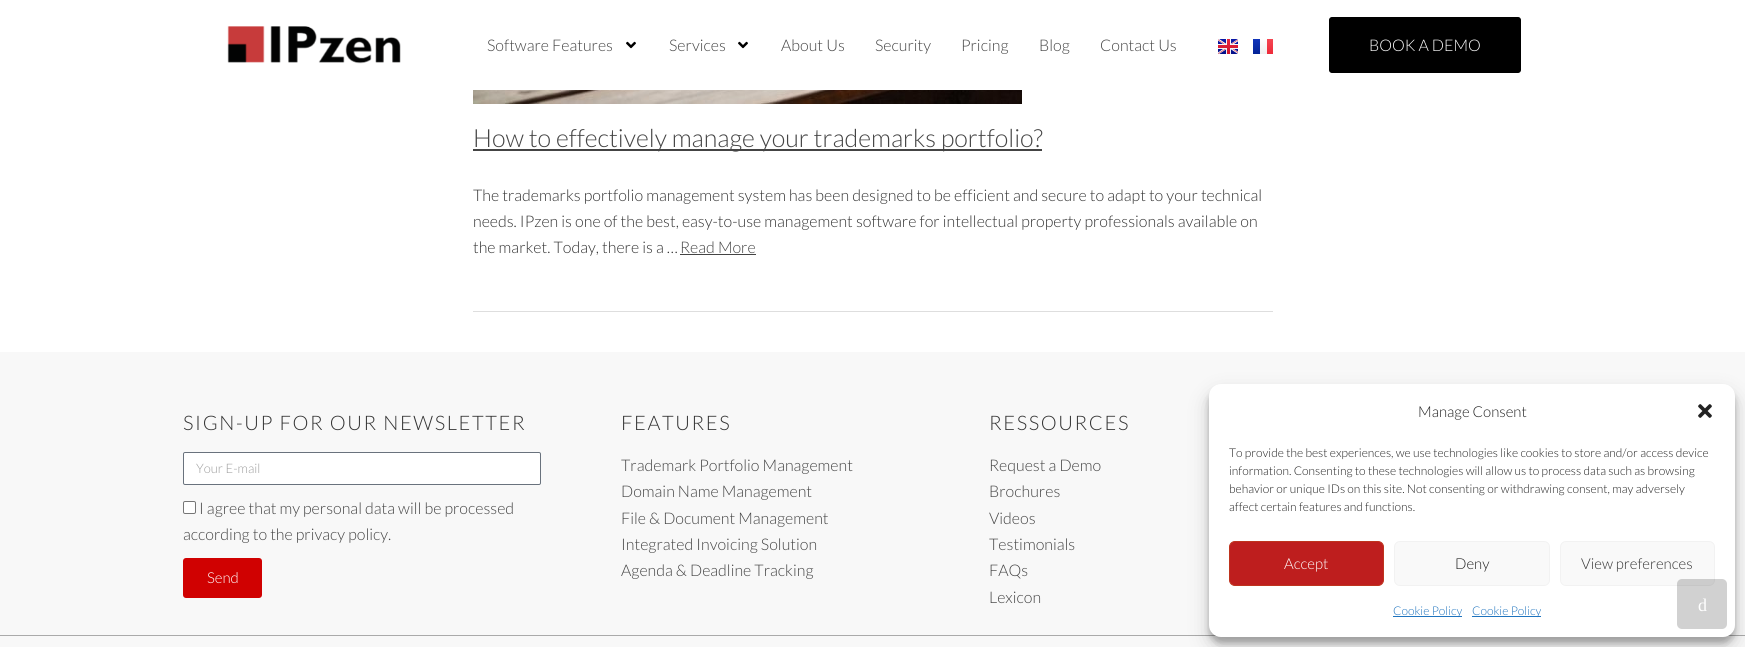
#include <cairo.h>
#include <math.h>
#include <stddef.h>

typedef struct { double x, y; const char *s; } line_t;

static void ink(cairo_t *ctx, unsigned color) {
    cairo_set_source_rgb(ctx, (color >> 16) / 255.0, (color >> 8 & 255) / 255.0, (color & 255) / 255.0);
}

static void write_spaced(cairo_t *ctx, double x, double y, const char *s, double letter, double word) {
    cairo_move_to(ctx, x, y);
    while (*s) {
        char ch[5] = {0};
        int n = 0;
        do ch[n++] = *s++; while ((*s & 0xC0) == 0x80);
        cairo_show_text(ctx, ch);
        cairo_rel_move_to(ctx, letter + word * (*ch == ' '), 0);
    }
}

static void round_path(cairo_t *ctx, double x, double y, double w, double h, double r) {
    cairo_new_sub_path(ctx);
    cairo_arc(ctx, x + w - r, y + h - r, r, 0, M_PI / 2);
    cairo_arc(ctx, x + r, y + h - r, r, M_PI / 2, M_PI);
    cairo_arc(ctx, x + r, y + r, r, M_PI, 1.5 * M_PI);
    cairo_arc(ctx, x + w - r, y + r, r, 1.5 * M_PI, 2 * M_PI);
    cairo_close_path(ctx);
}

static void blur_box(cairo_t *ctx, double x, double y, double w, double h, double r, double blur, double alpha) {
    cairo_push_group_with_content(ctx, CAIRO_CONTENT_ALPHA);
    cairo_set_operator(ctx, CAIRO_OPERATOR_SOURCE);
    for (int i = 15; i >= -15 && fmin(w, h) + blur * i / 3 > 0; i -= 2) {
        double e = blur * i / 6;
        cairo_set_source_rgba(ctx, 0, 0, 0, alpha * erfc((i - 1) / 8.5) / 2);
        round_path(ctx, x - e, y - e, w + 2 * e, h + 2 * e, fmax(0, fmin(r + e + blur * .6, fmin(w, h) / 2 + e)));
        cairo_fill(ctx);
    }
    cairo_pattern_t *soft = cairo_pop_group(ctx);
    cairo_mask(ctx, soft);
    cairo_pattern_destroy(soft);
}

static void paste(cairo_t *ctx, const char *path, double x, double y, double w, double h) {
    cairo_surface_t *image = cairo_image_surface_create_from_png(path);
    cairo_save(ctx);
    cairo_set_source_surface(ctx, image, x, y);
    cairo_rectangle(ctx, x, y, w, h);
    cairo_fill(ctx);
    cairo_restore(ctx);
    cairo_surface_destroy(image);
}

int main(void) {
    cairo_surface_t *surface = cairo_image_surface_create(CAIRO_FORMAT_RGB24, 1745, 647);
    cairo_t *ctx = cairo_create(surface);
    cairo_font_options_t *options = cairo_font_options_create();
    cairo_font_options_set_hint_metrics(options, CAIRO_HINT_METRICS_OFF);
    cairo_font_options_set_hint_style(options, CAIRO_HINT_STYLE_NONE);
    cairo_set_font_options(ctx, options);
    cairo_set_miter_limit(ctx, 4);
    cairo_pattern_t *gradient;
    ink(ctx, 0xFFFFFF);
    cairo_paint(ctx);
    paste(ctx, "media/1.png", 227, 26, 174, 38);
    cairo_select_font_face(ctx, "Lato Light", CAIRO_FONT_SLANT_NORMAL, CAIRO_FONT_WEIGHT_NORMAL);
    cairo_set_font_size(ctx, 16);
    ink(ctx, 0x444444);
    cairo_move_to(ctx, 487, 51);
    cairo_show_text(ctx, "Software Features");
    paste(ctx, "media/2.png", 626, 41, 10, 8);
    cairo_move_to(ctx, 669, 51);
    cairo_show_text(ctx, "Services");
    paste(ctx, "media/2.png", 738, 41, 10, 8);
    {
        static const line_t items[] = {
            {781, 51, "About Us"},
            {875, 51, "Security"},
            {961, 51, "Pricing"},
            {1039, 51, "Blog"},
            {1100, 51, "Contact Us"},
        };
        for (size_t i = 0; i < sizeof items / sizeof *items; i++) {
            cairo_move_to(ctx, items[i].x, items[i].y);
            cairo_show_text(ctx, items[i].s);
        }
    }
    paste(ctx, "media/3.png", 1218, 39, 20, 15);
    gradient = cairo_pattern_create_linear(1257, 39, 1257, 54);
    cairo_pattern_add_color_stop_rgba(gradient, 0, 0.063, 0.208, 0.733, 1);
    cairo_pattern_add_color_stop_rgba(gradient, 1, 0.016, 0.137, 0.588, 1);
    cairo_set_source(ctx, gradient);
    cairo_pattern_destroy(gradient);
    cairo_rectangle(ctx, 1253, 39, 7, 15);
    cairo_fill(ctx);
    gradient = cairo_pattern_create_linear(1264, 39, 1264, 54);
    cairo_pattern_add_color_stop_rgba(gradient, 0, 1, 1, 1, 1);
    cairo_pattern_add_color_stop_rgba(gradient, 1, 0.941, 0.941, 0.941, 1);
    cairo_set_source(ctx, gradient);
    cairo_pattern_destroy(gradient);
    cairo_rectangle(ctx, 1260, 39, 7, 15);
    cairo_fill(ctx);
    gradient = cairo_pattern_create_linear(1269, 39, 1269, 54);
    cairo_pattern_add_color_stop_rgba(gradient, 0, 0.957, 0.275, 0.325, 1);
    cairo_pattern_add_color_stop_rgba(gradient, 1, 0.933, 0.165, 0.224, 1);
    cairo_set_source(ctx, gradient);
    cairo_pattern_destroy(gradient);
    cairo_rectangle(ctx, 1267, 39, 6, 15);
    cairo_fill(ctx);
    ink(ctx, 0x000000);
    round_path(ctx, 1328, 16, 194, 58, 4);
    cairo_fill_preserve(ctx);
    ink(ctx, 0xFFFFFF);
    cairo_stroke(ctx);
    cairo_move_to(ctx, 1369, 51);
    cairo_show_text(ctx, "BOOK A DEMO");
    paste(ctx, "media/4.png", 473, 90, 549, 14);
    ink(ctx, 0xDEDEDE);
    cairo_rectangle(ctx, 473, 311, 800, 1);
    cairo_fill(ctx);
    ink(ctx, 0x444444);
    cairo_rectangle(ctx, 473, 149, 569, 2);
    cairo_fill(ctx);
    cairo_set_font_size(ctx, 25);
    cairo_move_to(ctx, 473, 147);
    cairo_show_text(ctx, "How to effectively manage your trademarks portfolio?");
    cairo_set_font_size(ctx, 16);
    ink(ctx, 0x333333);
    {
        static const line_t items[] = {
            {473, 201, "The trademarks portfolio management system has been designed to be efficient and secure to adapt to your technical"},
            {473, 227, "needs. IPzen is one of the best, easy-to-use management software for intellectual property professionals available on"},
            {473, 253, "the market. Today, there is a …"},
        };
        for (size_t i = 0; i < sizeof items / sizeof *items; i++) {
            cairo_move_to(ctx, items[i].x, items[i].y);
            cairo_show_text(ctx, items[i].s);
        }
    }
    ink(ctx, 0x444444);
    cairo_move_to(ctx, 680, 253);
    cairo_show_text(ctx, "Read More");
    cairo_rectangle(ctx, 680, 254, 76, 1);
    cairo_fill(ctx);
    ink(ctx, 0xF8F8F8);
    cairo_rectangle(ctx, 0, 352, 1745, 295);
    cairo_fill(ctx);
    cairo_set_font_size(ctx, 20);
    ink(ctx, 0x333333);
    write_spaced(ctx, 183, 430, "SIGN-UP FOR OUR NEWSLETTER", 1.6, 0);
    ink(ctx, 0xFFFFFF);
    round_path(ctx, 183.5, 452.5, 357, 32, 1.5);
    cairo_fill_preserve(ctx);
    ink(ctx, 0x69727D);
    cairo_set_line_width(ctx, 1);
    cairo_stroke(ctx);
    cairo_set_font_size(ctx, 13);
    ink(ctx, 0x9D9D9D);
    cairo_move_to(ctx, 196, 473);
    cairo_show_text(ctx, "Your E-mail");
    ink(ctx, 0xFFFFFF);
    round_path(ctx, 183.5, 501.5, 12, 12, 1.5);
    cairo_fill_preserve(ctx);
    ink(ctx, 0x767676);
    cairo_stroke(ctx);
    cairo_set_font_size(ctx, 16);
    ink(ctx, 0x444444);
    cairo_move_to(ctx, 199, 514);
    cairo_show_text(ctx, "I agree that my personal data will be processed");
    cairo_move_to(ctx, 183, 540);
    cairo_show_text(ctx, "according to the privacy policy.");
    ink(ctx, 0xD00101);
    round_path(ctx, 183, 558, 79, 40, 3);
    cairo_fill(ctx);
    cairo_set_font_size(ctx, 15);
    ink(ctx, 0xFFFFFF);
    cairo_move_to(ctx, 207, 583);
    cairo_show_text(ctx, "Send");
    cairo_set_font_size(ctx, 20);
    ink(ctx, 0x333333);
    write_spaced(ctx, 621, 430, "FEATURES", 1.6, 0);
    cairo_set_font_size(ctx, 16);
    ink(ctx, 0x444444);
    {
        static const line_t items[] = {
            {621, 471, "Trademark Portfolio Management"},
            {621, 497, "Domain Name Management"},
            {621, 524, "File & Document Management"},
            {621, 550, "Integrated Invoicing Solution"},
            {621, 576, "Agenda & Deadline Tracking"},
        };
        for (size_t i = 0; i < sizeof items / sizeof *items; i++) {
            cairo_move_to(ctx, items[i].x, items[i].y);
            cairo_show_text(ctx, items[i].s);
        }
    }
    cairo_set_font_size(ctx, 20);
    ink(ctx, 0x333333);
    write_spaced(ctx, 989, 430, "RESSOURCES", 1.6, 0);
    cairo_set_font_size(ctx, 16);
    ink(ctx, 0x444444);
    {
        static const line_t items[] = {
            {989, 471, "Request a Demo"},
            {989, 497, "Brochures"},
            {989, 524, "Videos"},
            {989, 550, "Testimonials"},
            {989, 576, "FAQs"},
            {989, 603, "Lexicon"},
        };
        for (size_t i = 0; i < sizeof items / sizeof *items; i++) {
            cairo_move_to(ctx, items[i].x, items[i].y);
            cairo_show_text(ctx, items[i].s);
        }
    }
    ink(ctx, 0xAAAAAA);
    cairo_rectangle(ctx, 0, 635, 1745, 1);
    cairo_fill(ctx);
    ink(ctx, 0x000000);
    blur_box(ctx, 1209, 390, 526, 253, 12, 3, 0.23);
    blur_box(ctx, 1209, 394, 526, 253, 12, 10, 0.19);
    ink(ctx, 0xFFFFFF);
    round_path(ctx, 1209, 384, 526, 253, 12);
    cairo_fill(ctx);
    cairo_set_font_size(ctx, 15);
    ink(ctx, 0x222222);
    cairo_move_to(ctx, 1418, 417);
    cairo_show_text(ctx, "Manage Consent");
    paste(ctx, "media/5.png", 1698, 404, 14, 14);
    cairo_set_font_size(ctx, 12);
    {
        static const line_t items[] = {
            {1229, 457, "To provide the best experiences, we use technologies like cookies to store and/or access device"},
            {1229, 475, "information. Consenting to these technologies will allow us to process data such as browsing"},
            {1229, 493, "behavior or unique IDs on this site. Not consenting or withdrawing consent, may adversely"},
            {1229, 511, "affect certain features and functions."},
        };
        for (size_t i = 0; i < sizeof items / sizeof *items; i++) {
            cairo_move_to(ctx, items[i].x, items[i].y);
            cairo_show_text(ctx, items[i].s);
        }
    }
    ink(ctx, 0xBE1E1E);
    round_path(ctx, 1229.5, 541.5, 154, 44, 5.5);
    cairo_fill_preserve(ctx);
    ink(ctx, 0xBE341E);
    cairo_stroke(ctx);
    cairo_set_font_size(ctx, 15);
    ink(ctx, 0xFFFFFF);
    cairo_move_to(ctx, 1284, 569);
    cairo_show_text(ctx, "Accept");
    ink(ctx, 0xF9F9F9);
    round_path(ctx, 1394.5, 541.5, 155, 44, 5.5);
    cairo_fill_preserve(ctx);
    ink(ctx, 0xF2F2F2);
    cairo_stroke(ctx);
    ink(ctx, 0x222222);
    cairo_move_to(ctx, 1455, 569);
    cairo_show_text(ctx, "Deny");
    ink(ctx, 0xF9F9F9);
    round_path(ctx, 1560.5, 541.5, 154, 44, 5.5);
    cairo_fill_preserve(ctx);
    ink(ctx, 0xF2F2F2);
    cairo_stroke(ctx);
    ink(ctx, 0x333333);
    cairo_move_to(ctx, 1581, 569);
    cairo_show_text(ctx, "View preferences");
    ink(ctx, 0x1E73BE);
    cairo_rectangle(ctx, 1393, 616, 69, 1);
    cairo_fill(ctx);
    cairo_set_font_size(ctx, 12);
    cairo_move_to(ctx, 1393, 615);
    cairo_show_text(ctx, "Cookie Policy");
    cairo_rectangle(ctx, 1472, 616, 69, 1);
    cairo_fill(ctx);
    cairo_move_to(ctx, 1472, 615);
    cairo_show_text(ctx, "Cookie Policy");
    cairo_set_source_rgba(ctx, 0, 0, 0, 0.18);
    round_path(ctx, 1677, 579, 50, 50, 5);
    cairo_fill(ctx);
    cairo_select_font_face(ctx, "Liberation Serif", CAIRO_FONT_SLANT_NORMAL, CAIRO_FONT_WEIGHT_NORMAL);
    cairo_set_font_size(ctx, 18);
    ink(ctx, 0xFFFFFF);
    cairo_move_to(ctx, 1698, 611);
    cairo_show_text(ctx, "d");
    cairo_surface_write_to_png(surface, "image.png");
    cairo_font_options_destroy(options);
    cairo_destroy(ctx);
    cairo_surface_destroy(surface);
    return 0;
}
